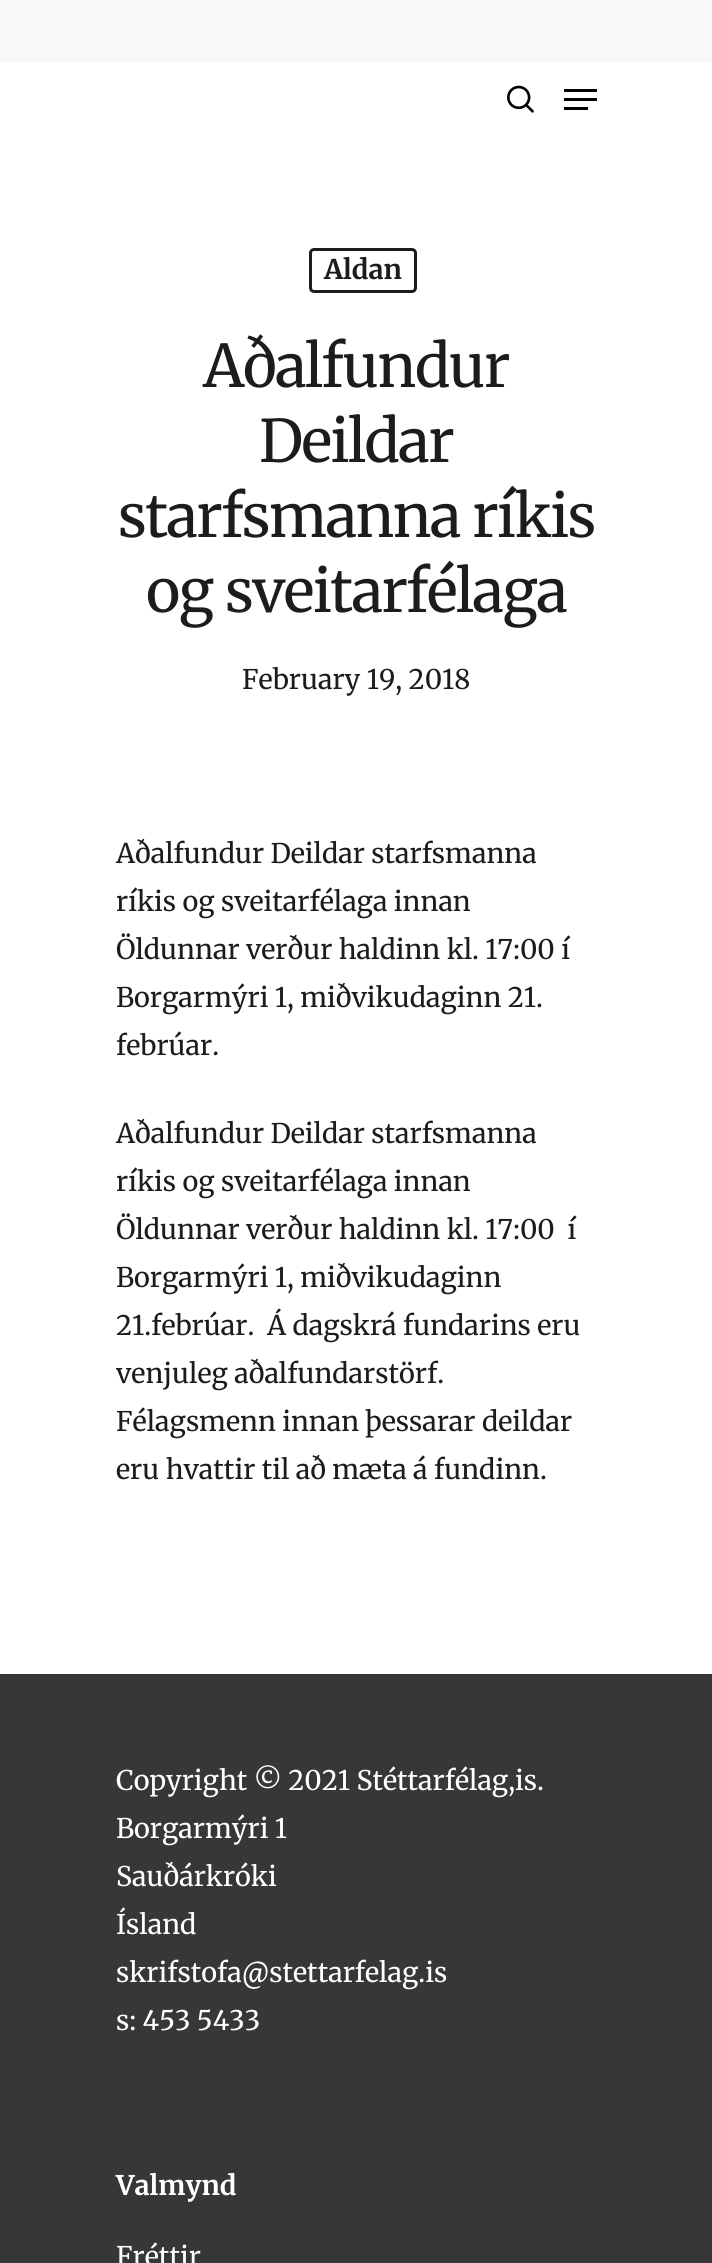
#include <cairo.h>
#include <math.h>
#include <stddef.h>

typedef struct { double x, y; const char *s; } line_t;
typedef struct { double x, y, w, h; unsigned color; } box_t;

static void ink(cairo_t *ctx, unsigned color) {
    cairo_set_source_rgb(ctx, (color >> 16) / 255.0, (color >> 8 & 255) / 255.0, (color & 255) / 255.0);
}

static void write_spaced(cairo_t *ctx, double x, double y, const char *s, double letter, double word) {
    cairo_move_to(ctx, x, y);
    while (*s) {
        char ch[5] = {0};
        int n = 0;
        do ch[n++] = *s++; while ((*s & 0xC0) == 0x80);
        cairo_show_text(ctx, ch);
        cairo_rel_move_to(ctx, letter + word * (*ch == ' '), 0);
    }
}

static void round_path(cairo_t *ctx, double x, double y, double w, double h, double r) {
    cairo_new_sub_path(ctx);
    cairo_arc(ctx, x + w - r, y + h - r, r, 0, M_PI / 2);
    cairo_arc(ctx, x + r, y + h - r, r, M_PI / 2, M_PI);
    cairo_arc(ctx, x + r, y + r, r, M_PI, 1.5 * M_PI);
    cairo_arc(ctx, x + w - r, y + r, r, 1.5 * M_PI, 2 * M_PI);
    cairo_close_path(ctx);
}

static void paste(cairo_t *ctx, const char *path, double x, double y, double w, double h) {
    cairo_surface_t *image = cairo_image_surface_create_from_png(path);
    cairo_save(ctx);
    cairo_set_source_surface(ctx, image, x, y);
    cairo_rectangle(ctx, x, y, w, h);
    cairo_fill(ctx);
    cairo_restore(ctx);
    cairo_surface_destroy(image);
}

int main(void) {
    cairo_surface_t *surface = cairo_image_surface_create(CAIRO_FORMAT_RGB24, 712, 2263);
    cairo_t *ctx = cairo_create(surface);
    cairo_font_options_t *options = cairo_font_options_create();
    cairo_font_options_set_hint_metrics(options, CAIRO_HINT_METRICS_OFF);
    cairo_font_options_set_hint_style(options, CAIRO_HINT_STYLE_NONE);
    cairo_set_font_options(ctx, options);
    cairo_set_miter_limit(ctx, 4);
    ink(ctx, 0xFFFFFF);
    cairo_paint(ctx);
    ink(ctx, 0xF8F8F8);
    cairo_rectangle(ctx, 0, 0, 712, 62);
    cairo_fill(ctx);
    paste(ctx, "media/1.png", 507, 85, 27, 28);
    {
        static const box_t items[] = {
            {564, 89, 33, 3, 0x000000},
            {564, 107, 24, 3, 0x000000},
            {564, 98, 33, 3, 0x000000},
        };
        for (size_t i = 0; i < sizeof items / sizeof *items; i++) {
            ink(ctx, items[i].color);
            cairo_rectangle(ctx, items[i].x, items[i].y, items[i].w, items[i].h);
            cairo_fill(ctx);
        }
    }
    round_path(ctx, 310.5, 249.5, 105, 42, 3.5);
    ink(ctx, 0x1C1C1C);
    cairo_set_line_width(ctx, 3);
    cairo_stroke(ctx);
    cairo_select_font_face(ctx, "Merriweather", CAIRO_FONT_SLANT_NORMAL, CAIRO_FONT_WEIGHT_BOLD);
    cairo_set_font_size(ctx, 27);
    cairo_move_to(ctx, 324, 279);
    cairo_show_text(ctx, "Aldan");
    cairo_select_font_face(ctx, "Merriweather", CAIRO_FONT_SLANT_NORMAL, CAIRO_FONT_WEIGHT_NORMAL);
    cairo_set_font_size(ctx, 58.5);
    {
        static const line_t items[] = {
            {203, 387, "Aðalfundur"},
            {259, 462, "Deildar"},
            {118, 537, "starfsmanna ríkis"},
            {146, 612, "og sveitarfélaga"},
        };
        for (size_t i = 0; i < sizeof items / sizeof *items; i++) {
            write_spaced(ctx, items[i].x, items[i].y, items[i].s, -1.5, 0);
        }
    }
    cairo_set_font_size(ctx, 27);
    {
        static const line_t items[] = {
            {242, 689, "February 19, 2018"},
            {116, 863, "Aðalfundur Deildar starfsmanna"},
            {116, 911, "ríkis og sveitarfélaga innan"},
            {116, 959, "Öldunnar verður haldinn kl. 17:00 í"},
            {116, 1007, "Borgarmýri 1, miðvikudaginn 21."},
            {116, 1055, "febrúar."},
            {116, 1143, "Aðalfundur Deildar starfsmanna"},
            {116, 1191, "ríkis og sveitarfélaga innan"},
            {116, 1239, "Öldunnar verður haldinn kl. 17:00  í"},
            {116, 1287, "Borgarmýri 1, miðvikudaginn"},
            {116, 1335, "21.febrúar.  Á dagskrá fundarins eru"},
            {116, 1383, "venjuleg aðalfundarstörf."},
            {116, 1431, "Félagsmenn innan þessarar deildar"},
            {116, 1479, "eru hvattir til að mæta á fundinn."},
        };
        for (size_t i = 0; i < sizeof items / sizeof *items; i++) {
            cairo_move_to(ctx, items[i].x, items[i].y);
            cairo_show_text(ctx, items[i].s);
        }
    }
    ink(ctx, 0x373737);
    cairo_rectangle(ctx, 0, 1674, 712, 589);
    cairo_fill(ctx);
    ink(ctx, 0xFFFFFF);
    {
        static const line_t items[] = {
            {116, 1790, "Copyright © 2021 Stéttarfélag,is."},
            {116, 1838, "Borgarmýri 1"},
            {116, 1886, "Sauðárkróki"},
            {116, 1934, "Ísland"},
            {116, 1982, "skrifstofa@stettarfelag.is"},
            {116, 2030, "s: 453 5433"},
        };
        for (size_t i = 0; i < sizeof items / sizeof *items; i++) {
            cairo_move_to(ctx, items[i].x, items[i].y);
            cairo_show_text(ctx, items[i].s);
        }
    }
    cairo_select_font_face(ctx, "Merriweather", CAIRO_FONT_SLANT_NORMAL, CAIRO_FONT_WEIGHT_BOLD);
    cairo_move_to(ctx, 116, 2195);
    cairo_show_text(ctx, "Valmynd");
    cairo_select_font_face(ctx, "Merriweather", CAIRO_FONT_SLANT_NORMAL, CAIRO_FONT_WEIGHT_NORMAL);
    cairo_move_to(ctx, 116, 2266);
    cairo_show_text(ctx, "Fréttir");
    cairo_surface_write_to_png(surface, "image.png");
    cairo_font_options_destroy(options);
    cairo_destroy(ctx);
    cairo_surface_destroy(surface);
    return 0;
}
